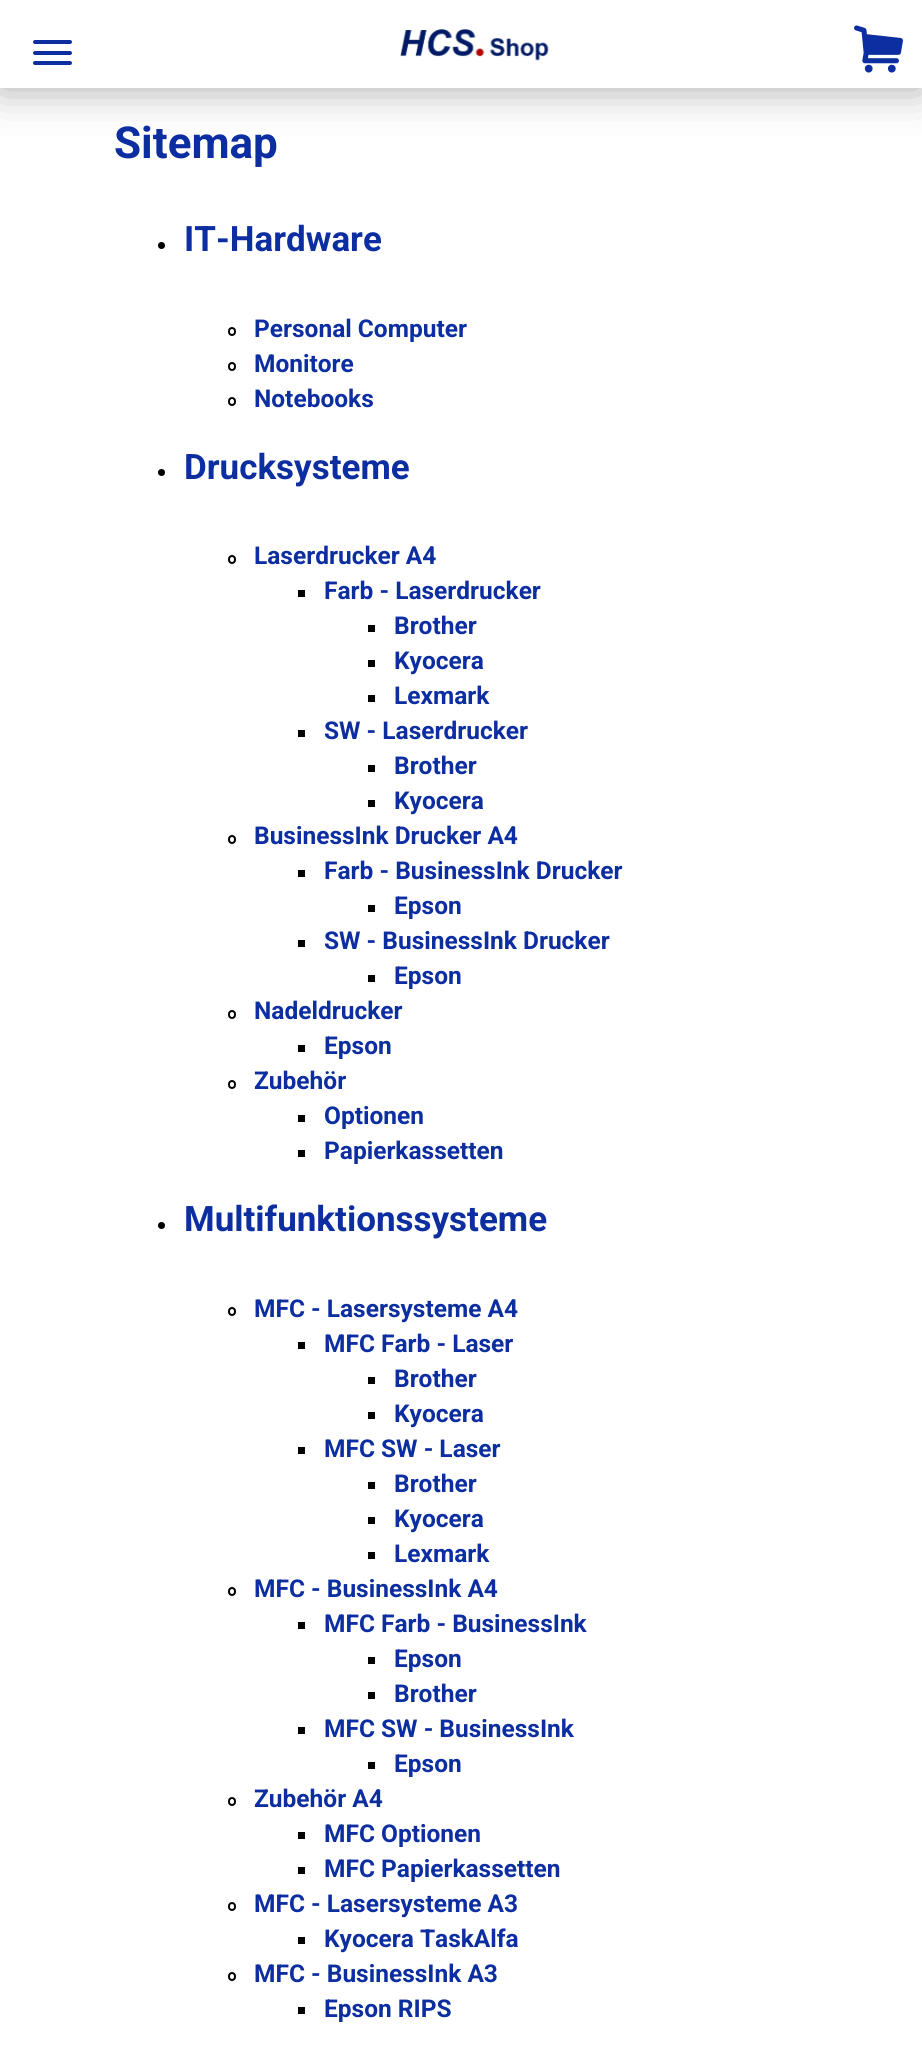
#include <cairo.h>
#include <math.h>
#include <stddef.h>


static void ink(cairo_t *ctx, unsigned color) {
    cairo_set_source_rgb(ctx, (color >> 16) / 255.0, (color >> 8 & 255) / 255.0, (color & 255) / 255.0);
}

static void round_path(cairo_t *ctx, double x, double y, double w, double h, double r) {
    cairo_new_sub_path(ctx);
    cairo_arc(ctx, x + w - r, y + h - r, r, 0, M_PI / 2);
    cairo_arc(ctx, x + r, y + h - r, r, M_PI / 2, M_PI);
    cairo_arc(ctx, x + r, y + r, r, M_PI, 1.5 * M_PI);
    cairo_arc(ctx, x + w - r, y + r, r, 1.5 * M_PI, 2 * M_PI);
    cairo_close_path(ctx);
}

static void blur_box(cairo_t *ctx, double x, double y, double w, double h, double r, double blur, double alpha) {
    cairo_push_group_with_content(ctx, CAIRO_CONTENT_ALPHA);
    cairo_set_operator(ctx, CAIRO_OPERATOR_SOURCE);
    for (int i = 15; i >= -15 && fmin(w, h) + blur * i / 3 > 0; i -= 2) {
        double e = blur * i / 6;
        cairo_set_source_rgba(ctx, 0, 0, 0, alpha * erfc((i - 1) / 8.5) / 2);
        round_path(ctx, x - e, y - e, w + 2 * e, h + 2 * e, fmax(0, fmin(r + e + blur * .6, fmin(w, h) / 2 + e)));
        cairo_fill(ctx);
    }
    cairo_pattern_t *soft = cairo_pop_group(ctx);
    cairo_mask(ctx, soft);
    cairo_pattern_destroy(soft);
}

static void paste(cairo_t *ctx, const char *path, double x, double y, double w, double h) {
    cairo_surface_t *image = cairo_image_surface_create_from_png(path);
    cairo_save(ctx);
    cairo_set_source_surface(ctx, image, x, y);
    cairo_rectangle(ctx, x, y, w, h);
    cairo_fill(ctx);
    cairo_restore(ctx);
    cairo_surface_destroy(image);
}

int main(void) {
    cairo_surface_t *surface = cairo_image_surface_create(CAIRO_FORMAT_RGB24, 922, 2069);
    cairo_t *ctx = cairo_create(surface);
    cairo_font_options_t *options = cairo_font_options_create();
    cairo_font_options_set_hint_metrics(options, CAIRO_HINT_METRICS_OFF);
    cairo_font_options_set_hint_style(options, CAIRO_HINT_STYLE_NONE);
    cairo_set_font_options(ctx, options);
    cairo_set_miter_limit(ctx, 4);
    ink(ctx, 0xFFFFFF);
    cairo_paint(ctx);
    ink(ctx, 0x000000);
    blur_box(ctx, 0, 0, 922, 88, 0, 22, 0.35);
    ink(ctx, 0xFFFFFF);
    cairo_rectangle(ctx, 0, 0, 922, 88);
    cairo_fill(ctx);
    paste(ctx, "media/1.png", 400, 29, 149, 32);
    paste(ctx, "media/2.png", 854, 25, 49, 48);
    ink(ctx, 0x0D2EA0);
    round_path(ctx, 33, 51, 39, 4, 2);
    cairo_fill(ctx);
    round_path(ctx, 33, 40, 39, 4, 2);
    cairo_fill(ctx);
    round_path(ctx, 33, 61, 39, 4, 2);
    cairo_fill(ctx);
    cairo_select_font_face(ctx, "Roboto", CAIRO_FONT_SLANT_NORMAL, CAIRO_FONT_WEIGHT_BOLD);
    cairo_set_font_size(ctx, 44);
    cairo_move_to(ctx, 114, 158);
    cairo_show_text(ctx, "Sitemap");
    ink(ctx, 0x000000);
    cairo_new_path(ctx);
    cairo_arc(ctx, 161.5, 245.5, 3.5, 0, 2 * M_PI);
    cairo_fill(ctx);
    cairo_set_font_size(ctx, 35);
    ink(ctx, 0x0D2EA0);
    cairo_move_to(ctx, 184, 251);
    cairo_show_text(ctx, "IT-Hardware");
    round_path(ctx, 229, 328, 6, 7, 3);
    ink(ctx, 0x000000);
    cairo_stroke(ctx);
    cairo_set_font_size(ctx, 24.5);
    ink(ctx, 0x0D2EA0);
    cairo_move_to(ctx, 254, 337);
    cairo_show_text(ctx, "Personal Computer");
    round_path(ctx, 229, 363, 6, 7, 3);
    ink(ctx, 0x000000);
    cairo_stroke(ctx);
    ink(ctx, 0x0D2EA0);
    cairo_move_to(ctx, 254, 372);
    cairo_show_text(ctx, "Monitore");
    round_path(ctx, 229, 398, 6, 7, 3);
    ink(ctx, 0x000000);
    cairo_stroke(ctx);
    ink(ctx, 0x0D2EA0);
    cairo_move_to(ctx, 254, 407);
    cairo_show_text(ctx, "Notebooks");
    ink(ctx, 0x000000);
    cairo_new_path(ctx);
    cairo_arc(ctx, 161.5, 472.5, 3.5, 0, 2 * M_PI);
    cairo_fill(ctx);
    cairo_set_font_size(ctx, 35);
    ink(ctx, 0x0D2EA0);
    cairo_move_to(ctx, 184, 479);
    cairo_show_text(ctx, "Drucksysteme");
    round_path(ctx, 229, 556, 6, 7, 3);
    ink(ctx, 0x000000);
    cairo_stroke(ctx);
    cairo_set_font_size(ctx, 24.5);
    ink(ctx, 0x0D2EA0);
    cairo_move_to(ctx, 254, 564);
    cairo_show_text(ctx, "Laserdrucker A4");
    ink(ctx, 0x000000);
    cairo_rectangle(ctx, 298, 590, 7, 7);
    cairo_fill(ctx);
    ink(ctx, 0x0D2EA0);
    cairo_move_to(ctx, 324, 599);
    cairo_show_text(ctx, "Farb - Laserdrucker");
    ink(ctx, 0x000000);
    cairo_rectangle(ctx, 368, 625, 7, 7);
    cairo_fill(ctx);
    ink(ctx, 0x0D2EA0);
    cairo_move_to(ctx, 394, 634);
    cairo_show_text(ctx, "Brother");
    ink(ctx, 0x000000);
    cairo_rectangle(ctx, 368, 660, 7, 7);
    cairo_fill(ctx);
    ink(ctx, 0x0D2EA0);
    cairo_move_to(ctx, 394, 669);
    cairo_show_text(ctx, "Kyocera");
    ink(ctx, 0x000000);
    cairo_rectangle(ctx, 368, 695, 7, 7);
    cairo_fill(ctx);
    ink(ctx, 0x0D2EA0);
    cairo_move_to(ctx, 394, 704);
    cairo_show_text(ctx, "Lexmark");
    ink(ctx, 0x000000);
    cairo_rectangle(ctx, 298, 730, 7, 7);
    cairo_fill(ctx);
    ink(ctx, 0x0D2EA0);
    cairo_move_to(ctx, 324, 739);
    cairo_show_text(ctx, "SW - Laserdrucker");
    ink(ctx, 0x000000);
    cairo_rectangle(ctx, 368, 765, 7, 7);
    cairo_fill(ctx);
    ink(ctx, 0x0D2EA0);
    cairo_move_to(ctx, 394, 774);
    cairo_show_text(ctx, "Brother");
    ink(ctx, 0x000000);
    cairo_rectangle(ctx, 368, 800, 7, 7);
    cairo_fill(ctx);
    ink(ctx, 0x0D2EA0);
    cairo_move_to(ctx, 394, 809);
    cairo_show_text(ctx, "Kyocera");
    round_path(ctx, 229, 836, 6, 7, 3);
    ink(ctx, 0x000000);
    cairo_stroke(ctx);
    ink(ctx, 0x0D2EA0);
    cairo_move_to(ctx, 254, 844);
    cairo_show_text(ctx, "BusinessInk Drucker A4");
    ink(ctx, 0x000000);
    cairo_rectangle(ctx, 298, 870, 7, 7);
    cairo_fill(ctx);
    ink(ctx, 0x0D2EA0);
    cairo_move_to(ctx, 324, 879);
    cairo_show_text(ctx, "Farb - BusinessInk Drucker");
    ink(ctx, 0x000000);
    cairo_rectangle(ctx, 368, 905, 7, 7);
    cairo_fill(ctx);
    ink(ctx, 0x0D2EA0);
    cairo_move_to(ctx, 394, 914);
    cairo_show_text(ctx, "Epson");
    ink(ctx, 0x000000);
    cairo_rectangle(ctx, 298, 940, 7, 7);
    cairo_fill(ctx);
    ink(ctx, 0x0D2EA0);
    cairo_move_to(ctx, 324, 949);
    cairo_show_text(ctx, "SW - BusinessInk Drucker");
    ink(ctx, 0x000000);
    cairo_rectangle(ctx, 368, 975, 7, 7);
    cairo_fill(ctx);
    ink(ctx, 0x0D2EA0);
    cairo_move_to(ctx, 394, 984);
    cairo_show_text(ctx, "Epson");
    round_path(ctx, 229, 1011, 6, 7, 3);
    ink(ctx, 0x000000);
    cairo_stroke(ctx);
    ink(ctx, 0x0D2EA0);
    cairo_move_to(ctx, 254, 1019);
    cairo_show_text(ctx, "Nadeldrucker");
    ink(ctx, 0x000000);
    cairo_rectangle(ctx, 298, 1045, 7, 7);
    cairo_fill(ctx);
    ink(ctx, 0x0D2EA0);
    cairo_move_to(ctx, 324, 1054);
    cairo_show_text(ctx, "Epson");
    round_path(ctx, 229, 1081, 6, 7, 3);
    ink(ctx, 0x000000);
    cairo_stroke(ctx);
    ink(ctx, 0x0D2EA0);
    cairo_move_to(ctx, 254, 1089);
    cairo_show_text(ctx, "Zubehör");
    ink(ctx, 0x000000);
    cairo_rectangle(ctx, 298, 1115, 7, 7);
    cairo_fill(ctx);
    ink(ctx, 0x0D2EA0);
    cairo_move_to(ctx, 324, 1124);
    cairo_show_text(ctx, "Optionen");
    ink(ctx, 0x000000);
    cairo_rectangle(ctx, 298, 1150, 7, 7);
    cairo_fill(ctx);
    ink(ctx, 0x0D2EA0);
    cairo_move_to(ctx, 324, 1159);
    cairo_show_text(ctx, "Papierkassetten");
    ink(ctx, 0x000000);
    cairo_new_path(ctx);
    cairo_arc(ctx, 161.5, 1225.5, 3.5, 0, 2 * M_PI);
    cairo_fill(ctx);
    cairo_set_font_size(ctx, 35);
    ink(ctx, 0x0D2EA0);
    cairo_move_to(ctx, 184, 1231);
    cairo_show_text(ctx, "Multifunktionssysteme");
    round_path(ctx, 229, 1308, 6, 7, 3);
    ink(ctx, 0x000000);
    cairo_stroke(ctx);
    cairo_set_font_size(ctx, 24.5);
    ink(ctx, 0x0D2EA0);
    cairo_move_to(ctx, 254, 1317);
    cairo_show_text(ctx, "MFC - Lasersysteme A4");
    ink(ctx, 0x000000);
    cairo_rectangle(ctx, 298, 1342, 7, 7);
    cairo_fill(ctx);
    ink(ctx, 0x0D2EA0);
    cairo_move_to(ctx, 324, 1352);
    cairo_show_text(ctx, "MFC Farb - Laser");
    ink(ctx, 0x000000);
    cairo_rectangle(ctx, 368, 1377, 7, 7);
    cairo_fill(ctx);
    ink(ctx, 0x0D2EA0);
    cairo_move_to(ctx, 394, 1387);
    cairo_show_text(ctx, "Brother");
    ink(ctx, 0x000000);
    cairo_rectangle(ctx, 368, 1412, 7, 7);
    cairo_fill(ctx);
    ink(ctx, 0x0D2EA0);
    cairo_move_to(ctx, 394, 1422);
    cairo_show_text(ctx, "Kyocera");
    ink(ctx, 0x000000);
    cairo_rectangle(ctx, 298, 1447, 7, 7);
    cairo_fill(ctx);
    ink(ctx, 0x0D2EA0);
    cairo_move_to(ctx, 324, 1457);
    cairo_show_text(ctx, "MFC SW - Laser");
    ink(ctx, 0x000000);
    cairo_rectangle(ctx, 368, 1482, 7, 7);
    cairo_fill(ctx);
    ink(ctx, 0x0D2EA0);
    cairo_move_to(ctx, 394, 1492);
    cairo_show_text(ctx, "Brother");
    ink(ctx, 0x000000);
    cairo_rectangle(ctx, 368, 1517, 7, 7);
    cairo_fill(ctx);
    ink(ctx, 0x0D2EA0);
    cairo_move_to(ctx, 394, 1527);
    cairo_show_text(ctx, "Kyocera");
    ink(ctx, 0x000000);
    cairo_rectangle(ctx, 368, 1552, 7, 7);
    cairo_fill(ctx);
    ink(ctx, 0x0D2EA0);
    cairo_move_to(ctx, 394, 1562);
    cairo_show_text(ctx, "Lexmark");
    round_path(ctx, 229, 1588, 6, 7, 3);
    ink(ctx, 0x000000);
    cairo_stroke(ctx);
    ink(ctx, 0x0D2EA0);
    cairo_move_to(ctx, 254, 1597);
    cairo_show_text(ctx, "MFC - BusinessInk A4");
    ink(ctx, 0x000000);
    cairo_rectangle(ctx, 298, 1622, 7, 7);
    cairo_fill(ctx);
    ink(ctx, 0x0D2EA0);
    cairo_move_to(ctx, 324, 1632);
    cairo_show_text(ctx, "MFC Farb - BusinessInk");
    ink(ctx, 0x000000);
    cairo_rectangle(ctx, 368, 1657, 7, 7);
    cairo_fill(ctx);
    ink(ctx, 0x0D2EA0);
    cairo_move_to(ctx, 394, 1667);
    cairo_show_text(ctx, "Epson");
    ink(ctx, 0x000000);
    cairo_rectangle(ctx, 368, 1692, 7, 7);
    cairo_fill(ctx);
    ink(ctx, 0x0D2EA0);
    cairo_move_to(ctx, 394, 1702);
    cairo_show_text(ctx, "Brother");
    ink(ctx, 0x000000);
    cairo_rectangle(ctx, 298, 1727, 7, 7);
    cairo_fill(ctx);
    ink(ctx, 0x0D2EA0);
    cairo_move_to(ctx, 324, 1737);
    cairo_show_text(ctx, "MFC SW - BusinessInk");
    ink(ctx, 0x000000);
    cairo_rectangle(ctx, 368, 1762, 7, 7);
    cairo_fill(ctx);
    ink(ctx, 0x0D2EA0);
    cairo_move_to(ctx, 394, 1772);
    cairo_show_text(ctx, "Epson");
    round_path(ctx, 229, 1798, 6, 7, 3);
    ink(ctx, 0x000000);
    cairo_stroke(ctx);
    ink(ctx, 0x0D2EA0);
    cairo_move_to(ctx, 254, 1807);
    cairo_show_text(ctx, "Zubehör A4");
    ink(ctx, 0x000000);
    cairo_rectangle(ctx, 298, 1832, 7, 7);
    cairo_fill(ctx);
    ink(ctx, 0x0D2EA0);
    cairo_move_to(ctx, 324, 1842);
    cairo_show_text(ctx, "MFC Optionen");
    ink(ctx, 0x000000);
    cairo_rectangle(ctx, 298, 1867, 7, 7);
    cairo_fill(ctx);
    ink(ctx, 0x0D2EA0);
    cairo_move_to(ctx, 324, 1877);
    cairo_show_text(ctx, "MFC Papierkassetten");
    round_path(ctx, 229, 1903, 6, 7, 3);
    ink(ctx, 0x000000);
    cairo_stroke(ctx);
    ink(ctx, 0x0D2EA0);
    cairo_move_to(ctx, 254, 1912);
    cairo_show_text(ctx, "MFC - Lasersysteme A3");
    ink(ctx, 0x000000);
    cairo_rectangle(ctx, 298, 1937, 7, 7);
    cairo_fill(ctx);
    ink(ctx, 0x0D2EA0);
    cairo_move_to(ctx, 324, 1947);
    cairo_show_text(ctx, "Kyocera TaskAlfa");
    round_path(ctx, 229, 1973, 6, 7, 3);
    ink(ctx, 0x000000);
    cairo_stroke(ctx);
    ink(ctx, 0x0D2EA0);
    cairo_move_to(ctx, 254, 1982);
    cairo_show_text(ctx, "MFC - BusinessInk A3");
    ink(ctx, 0x000000);
    cairo_rectangle(ctx, 298, 2007, 7, 7);
    cairo_fill(ctx);
    ink(ctx, 0x0D2EA0);
    cairo_move_to(ctx, 324, 2017);
    cairo_show_text(ctx, "Epson RIPS");
    cairo_surface_write_to_png(surface, "image.png");
    cairo_font_options_destroy(options);
    cairo_destroy(ctx);
    cairo_surface_destroy(surface);
    return 0;
}
